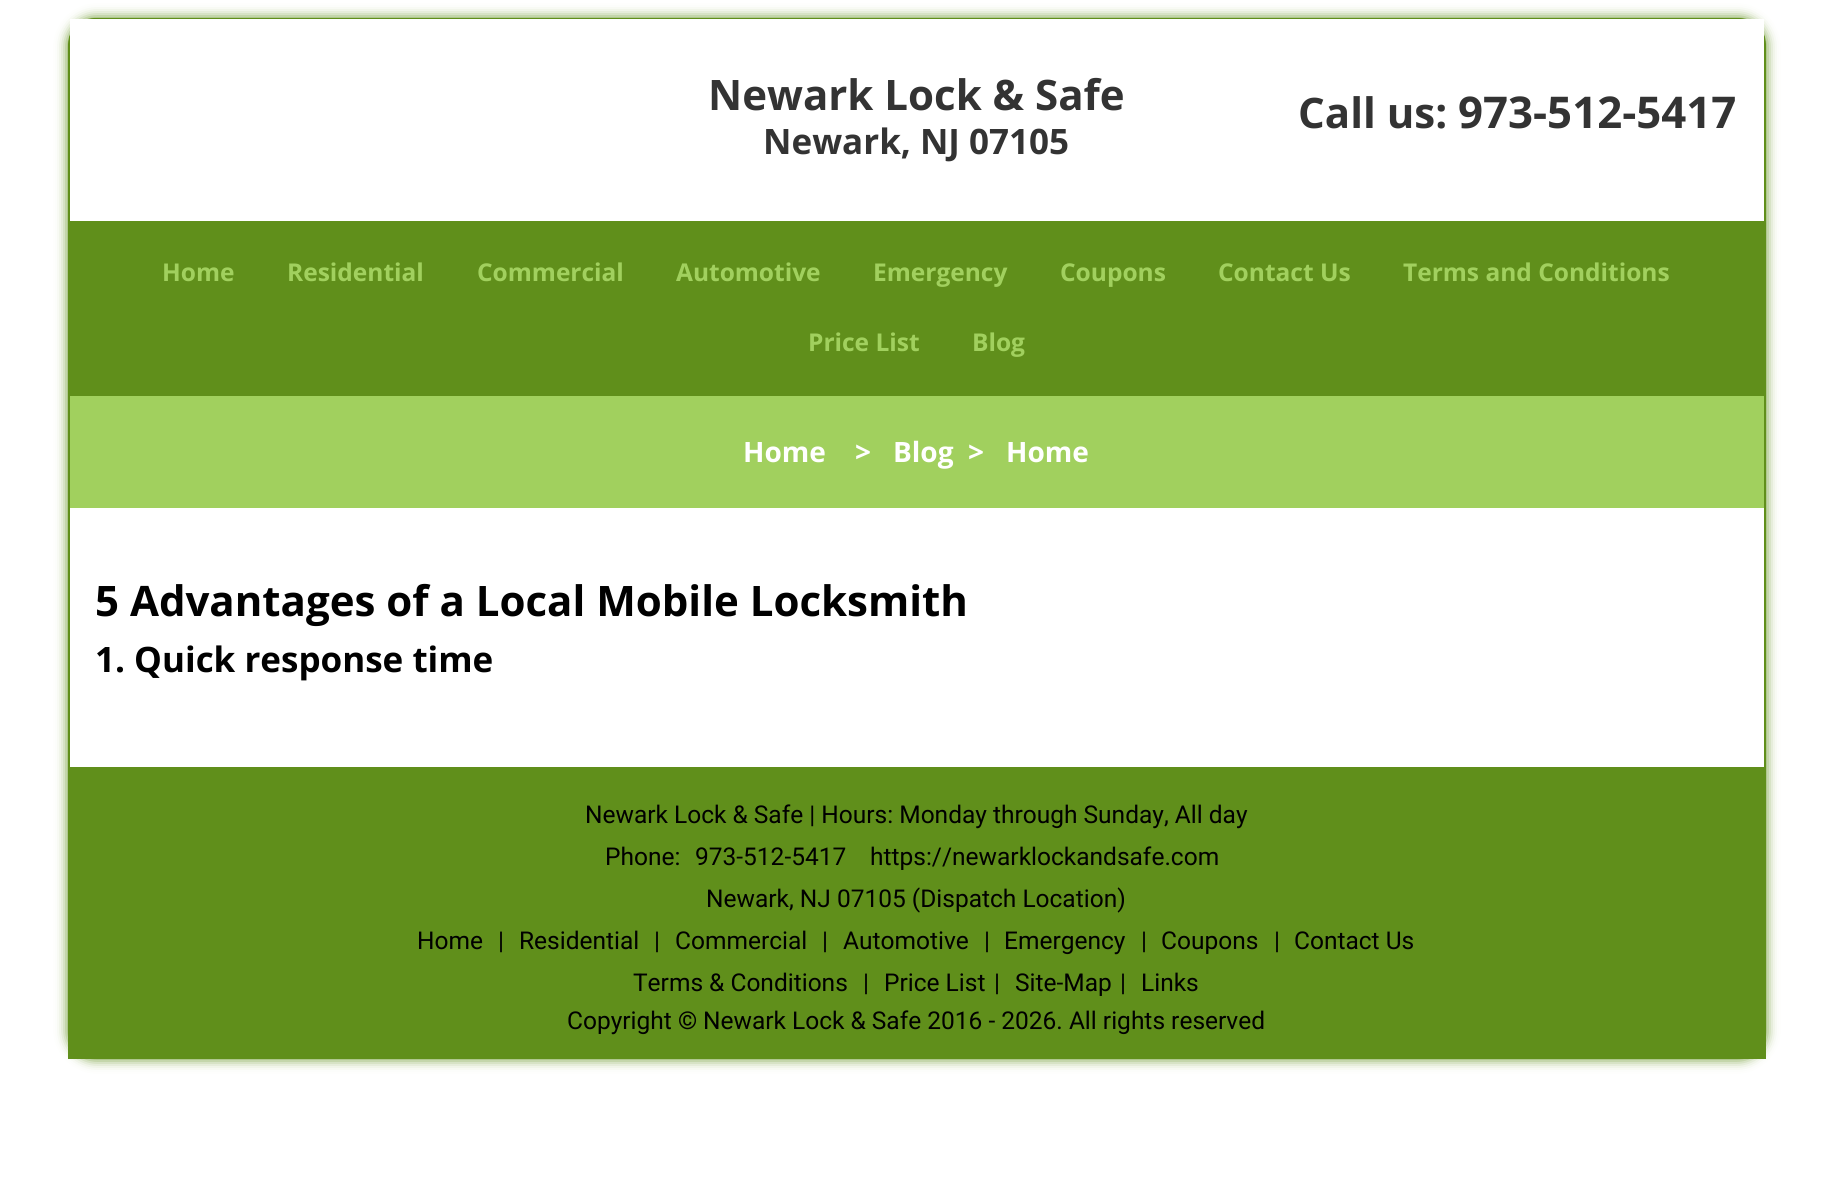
#include <cairo.h>
#include <math.h>
#include <stddef.h>

typedef struct { double x, y; const char *s; } line_t;

static void ink(cairo_t *ctx, unsigned color) {
    cairo_set_source_rgb(ctx, (color >> 16) / 255.0, (color >> 8 & 255) / 255.0, (color & 255) / 255.0);
}

static void round_path(cairo_t *ctx, double x, double y, double w, double h, double r) {
    cairo_new_sub_path(ctx);
    cairo_arc(ctx, x + w - r, y + h - r, r, 0, M_PI / 2);
    cairo_arc(ctx, x + r, y + h - r, r, M_PI / 2, M_PI);
    cairo_arc(ctx, x + r, y + r, r, M_PI, 1.5 * M_PI);
    cairo_arc(ctx, x + w - r, y + r, r, 1.5 * M_PI, 2 * M_PI);
    cairo_close_path(ctx);
}

static void blur_box(cairo_t *ctx, double x, double y, double w, double h, double r, double blur, double alpha) {
    cairo_push_group_with_content(ctx, CAIRO_CONTENT_ALPHA);
    cairo_set_operator(ctx, CAIRO_OPERATOR_SOURCE);
    for (int i = 15; i >= -15 && fmin(w, h) + blur * i / 3 > 0; i -= 2) {
        double e = blur * i / 6;
        cairo_set_source_rgba(ctx, 0, 0, 0, alpha * erfc((i - 1) / 8.5) / 2);
        round_path(ctx, x - e, y - e, w + 2 * e, h + 2 * e, fmax(0, fmin(r + e + blur * .6, fmin(w, h) / 2 + e)));
        cairo_fill(ctx);
    }
    cairo_pattern_t *soft = cairo_pop_group(ctx);
    cairo_mask(ctx, soft);
    cairo_pattern_destroy(soft);
}

int main(void) {
    cairo_surface_t *surface = cairo_image_surface_create(CAIRO_FORMAT_RGB24, 1831, 1201);
    cairo_t *ctx = cairo_create(surface);
    cairo_font_options_t *options = cairo_font_options_create();
    cairo_font_options_set_hint_metrics(options, CAIRO_HINT_METRICS_OFF);
    cairo_font_options_set_hint_style(options, CAIRO_HINT_STYLE_NONE);
    cairo_set_font_options(ctx, options);
    cairo_set_miter_limit(ctx, 4);
    ink(ctx, 0xFFFFFF);
    cairo_paint(ctx);
    cairo_save(ctx);
    cairo_set_fill_rule(ctx, CAIRO_FILL_RULE_EVEN_ODD);
    cairo_new_path(ctx);
    cairo_move_to(ctx, 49, 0);
    cairo_line_to(ctx, 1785, 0);
    cairo_line_to(ctx, 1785, 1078);
    cairo_line_to(ctx, 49, 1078);
    cairo_close_path(ctx);
    cairo_move_to(ctx, 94, 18);
    cairo_line_to(ctx, 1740, 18);
    cairo_curve_to(ctx, 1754.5, 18, 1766, 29.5, 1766, 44);
    cairo_line_to(ctx, 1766, 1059);
    cairo_line_to(ctx, 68, 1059);
    cairo_line_to(ctx, 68, 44);
    cairo_curve_to(ctx, 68, 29.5, 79.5, 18, 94, 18);
    cairo_close_path(ctx);
    cairo_clip(ctx);
    ink(ctx, 0x608F1B);
    blur_box(ctx, 68, 18, 1698, 1041, 26, 6, 1);
    cairo_restore(ctx);
    cairo_new_path(ctx);
    cairo_move_to(ctx, 94, 19);
    cairo_line_to(ctx, 1740, 19);
    cairo_curve_to(ctx, 1754, 19, 1765, 30, 1765, 44);
    cairo_line_to(ctx, 1765, 1058);
    cairo_line_to(ctx, 69, 1058);
    cairo_line_to(ctx, 69, 44);
    cairo_curve_to(ctx, 69, 30, 80, 19, 94, 19);
    cairo_close_path(ctx);
    ink(ctx, 0x608F1B);
    cairo_stroke(ctx);
    ink(ctx, 0xFFFFFF);
    cairo_rectangle(ctx, 70, 19, 1694, 25);
    cairo_fill(ctx);
    cairo_select_font_face(ctx, "Open Sans", CAIRO_FONT_SLANT_NORMAL, CAIRO_FONT_WEIGHT_BOLD);
    cairo_set_font_size(ctx, 42);
    ink(ctx, 0x333333);
    cairo_move_to(ctx, 708, 110);
    cairo_show_text(ctx, "Newark Lock & Safe");
    cairo_set_font_size(ctx, 35);
    cairo_move_to(ctx, 763, 154);
    cairo_show_text(ctx, "Newark, NJ 07105");
    cairo_set_font_size(ctx, 42);
    cairo_move_to(ctx, 1298, 128);
    cairo_show_text(ctx, "Call us:");
    cairo_set_font_size(ctx, 43.75);
    cairo_move_to(ctx, 1458, 128);
    cairo_show_text(ctx, "973-512-5417");
    ink(ctx, 0x608F1B);
    cairo_rectangle(ctx, 70, 221, 1694, 175);
    cairo_fill(ctx);
    cairo_set_font_size(ctx, 24.5);
    ink(ctx, 0xA1D05E);
    {
        static const line_t items[] = {
            {162, 281, "Home"},
            {287, 281, "Residential"},
            {477, 281, "Commercial"},
            {676, 281, "Automotive"},
            {873, 281, "Emergency"},
            {1060, 281, "Coupons"},
            {1218, 281, "Contact Us"},
            {1403, 281, "Terms and Conditions"},
            {808, 351, "Price List"},
            {972, 351, "Blog"},
        };
        for (size_t i = 0; i < sizeof items / sizeof *items; i++) {
            cairo_move_to(ctx, items[i].x, items[i].y);
            cairo_show_text(ctx, items[i].s);
        }
    }
    cairo_rectangle(ctx, 70, 396, 1694, 112);
    cairo_fill(ctx);
    cairo_set_font_size(ctx, 28);
    ink(ctx, 0xFFFFFF);
    {
        static const line_t items[] = {
            {743, 462, "Home"},
            {855, 462, ">"},
            {893, 462, "Blog"},
            {968, 462, ">"},
            {1006, 462, "Home"},
        };
        for (size_t i = 0; i < sizeof items / sizeof *items; i++) {
            cairo_move_to(ctx, items[i].x, items[i].y);
            cairo_show_text(ctx, items[i].s);
        }
    }
    cairo_set_font_size(ctx, 42);
    ink(ctx, 0x000000);
    cairo_move_to(ctx, 95, 616);
    cairo_show_text(ctx, "5 Advantages of a Local Mobile Locksmith");
    cairo_set_font_size(ctx, 35);
    cairo_move_to(ctx, 95, 672);
    cairo_show_text(ctx, "1. Quick response time");
    ink(ctx, 0x608F1B);
    cairo_rectangle(ctx, 70, 767, 1694, 290);
    cairo_fill(ctx);
    cairo_select_font_face(ctx, "Roboto", CAIRO_FONT_SLANT_NORMAL, CAIRO_FONT_WEIGHT_NORMAL);
    cairo_set_font_size(ctx, 24.5);
    ink(ctx, 0x000000);
    {
        static const line_t items[] = {
            {585, 823, "Newark Lock & Safe | Hours: Monday through Sunday, All day"},
            {605, 865, "Phone:"},
            {695, 865, "973-512-5417"},
            {870, 865, "https://newarklockandsafe.com"},
            {706, 907, "Newark, NJ 07105 (Dispatch Location)"},
            {417, 949, "Home"},
            {498, 949, "|"},
            {519, 949, "Residential"},
            {654, 949, "|"},
            {675, 949, "Commercial"},
            {822, 949, "|"},
            {843, 949, "Automotive"},
            {984, 949, "|"},
            {1004, 949, "Emergency"},
            {1141, 949, "|"},
            {1161, 949, "Coupons"},
            {1274, 949, "|"},
            {1294, 949, "Contact Us"},
            {633, 991, "Terms & Conditions"},
            {863, 991, "|"},
            {884, 991, "Price List"},
            {994, 991, "|"},
            {1015, 991, "Site-Map"},
            {1120, 991, "|"},
            {1141, 991, "Links"},
            {567, 1029, "Copyright"},
        };
        for (size_t i = 0; i < sizeof items / sizeof *items; i++) {
            cairo_move_to(ctx, items[i].x, items[i].y);
            cairo_show_text(ctx, items[i].s);
        }
    }
    cairo_select_font_face(ctx, "Roboto", CAIRO_FONT_SLANT_NORMAL, CAIRO_FONT_WEIGHT_BOLD);
    cairo_move_to(ctx, 678, 1029);
    cairo_show_text(ctx, "©");
    cairo_select_font_face(ctx, "Roboto", CAIRO_FONT_SLANT_NORMAL, CAIRO_FONT_WEIGHT_NORMAL);
    cairo_move_to(ctx, 703, 1029);
    cairo_show_text(ctx, "Newark Lock & Safe 2016 - 2026. All rights reserved");
    cairo_surface_write_to_png(surface, "image.png");
    cairo_font_options_destroy(options);
    cairo_destroy(ctx);
    cairo_surface_destroy(surface);
    return 0;
}
